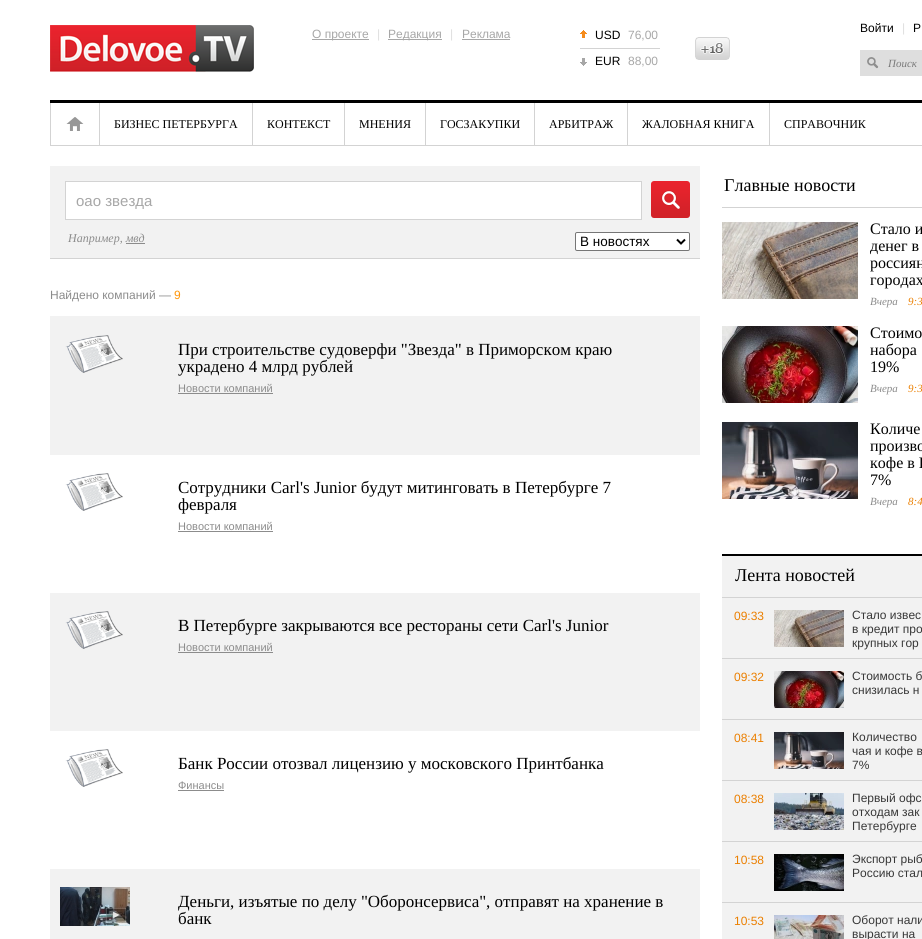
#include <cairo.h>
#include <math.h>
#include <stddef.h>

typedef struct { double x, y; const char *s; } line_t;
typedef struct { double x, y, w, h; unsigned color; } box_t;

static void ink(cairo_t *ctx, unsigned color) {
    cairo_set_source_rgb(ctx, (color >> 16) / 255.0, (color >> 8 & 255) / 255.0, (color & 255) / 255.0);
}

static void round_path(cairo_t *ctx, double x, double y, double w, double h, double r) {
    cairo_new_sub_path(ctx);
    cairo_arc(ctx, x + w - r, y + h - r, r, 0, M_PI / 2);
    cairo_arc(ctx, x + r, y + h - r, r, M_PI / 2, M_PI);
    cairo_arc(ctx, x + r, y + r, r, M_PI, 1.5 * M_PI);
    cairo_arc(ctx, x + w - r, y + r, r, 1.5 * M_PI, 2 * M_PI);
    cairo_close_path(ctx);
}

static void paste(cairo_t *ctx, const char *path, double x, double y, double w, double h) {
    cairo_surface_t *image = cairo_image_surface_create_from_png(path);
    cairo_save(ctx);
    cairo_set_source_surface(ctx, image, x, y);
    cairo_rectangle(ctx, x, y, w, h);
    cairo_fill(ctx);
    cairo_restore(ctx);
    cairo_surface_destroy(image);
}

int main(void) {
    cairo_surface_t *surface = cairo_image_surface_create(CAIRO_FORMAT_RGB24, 922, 939);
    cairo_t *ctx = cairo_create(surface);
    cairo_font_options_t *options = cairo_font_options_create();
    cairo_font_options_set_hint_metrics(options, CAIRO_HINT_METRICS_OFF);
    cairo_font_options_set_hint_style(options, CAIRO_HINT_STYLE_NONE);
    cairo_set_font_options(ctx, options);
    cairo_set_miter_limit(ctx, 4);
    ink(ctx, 0xFFFFFF);
    cairo_paint(ctx);
    paste(ctx, "media/1.png", 50, 25, 204, 47);
    ink(ctx, 0xA7A7A7);
    cairo_rectangle(ctx, 312, 39, 57, 1);
    cairo_fill(ctx);
    cairo_select_font_face(ctx, "Liberation Sans", CAIRO_FONT_SLANT_NORMAL, CAIRO_FONT_WEIGHT_NORMAL);
    cairo_set_font_size(ctx, 12);
    cairo_move_to(ctx, 312, 38);
    cairo_show_text(ctx, "О проекте");
    ink(ctx, 0xDFDFDF);
    cairo_move_to(ctx, 377, 38);
    cairo_show_text(ctx, "|");
    ink(ctx, 0xA7A7A7);
    cairo_rectangle(ctx, 388, 39, 54, 1);
    cairo_fill(ctx);
    cairo_move_to(ctx, 388, 38);
    cairo_show_text(ctx, "Редакция");
    ink(ctx, 0xDFDFDF);
    cairo_move_to(ctx, 450, 38);
    cairo_show_text(ctx, "|");
    ink(ctx, 0xA7A7A7);
    cairo_move_to(ctx, 462, 38);
    cairo_show_text(ctx, "Реклама");
    cairo_rectangle(ctx, 462, 39, 48, 1);
    cairo_fill(ctx);
    paste(ctx, "media/2.png", 580, 30, 7, 8);
    ink(ctx, 0xD3D3D3);
    cairo_rectangle(ctx, 580, 48, 80, 1);
    cairo_fill(ctx);
    ink(ctx, 0x000000);
    cairo_move_to(ctx, 595, 39);
    cairo_show_text(ctx, "USD");
    ink(ctx, 0xA7A7A7);
    cairo_move_to(ctx, 628, 39);
    cairo_show_text(ctx, "76,00");
    paste(ctx, "media/3.png", 580, 58, 7, 8);
    ink(ctx, 0x000000);
    cairo_move_to(ctx, 595, 65);
    cairo_show_text(ctx, "EUR");
    ink(ctx, 0xA7A7A7);
    cairo_move_to(ctx, 628, 65);
    cairo_show_text(ctx, "88,00");
    paste(ctx, "media/4.png", 695, 37, 35, 23);
    ink(ctx, 0x000000);
    cairo_move_to(ctx, 860, 32);
    cairo_show_text(ctx, "Войти");
    ink(ctx, 0xDFDFDF);
    cairo_move_to(ctx, 902, 32);
    cairo_show_text(ctx, "|");
    ink(ctx, 0x000000);
    cairo_move_to(ctx, 913, 32);
    cairo_show_text(ctx, "Р");
    ink(ctx, 0xDEDEDE);
    cairo_rectangle(ctx, 860, 50, 62, 26);
    cairo_fill(ctx);
    paste(ctx, "media/5.png", 867, 57, 12, 12);
    cairo_select_font_face(ctx, "Liberation Serif", CAIRO_FONT_SLANT_ITALIC, CAIRO_FONT_WEIGHT_NORMAL);
    cairo_set_font_size(ctx, 11);
    ink(ctx, 0x7A7A7A);
    cairo_move_to(ctx, 888, 67);
    cairo_show_text(ctx, "Поиск");
    {
        static const box_t items[] = {
            {50, 100, 872, 3, 0x000000},
            {50, 145, 872, 1, 0xD3D3D3},
            {50, 103, 1, 42, 0xD3D3D3},
            {99, 103, 1, 42, 0xD3D3D3},
        };
        for (size_t i = 0; i < sizeof items / sizeof *items; i++) {
            ink(ctx, items[i].color);
            cairo_rectangle(ctx, items[i].x, items[i].y, items[i].w, items[i].h);
            cairo_fill(ctx);
        }
    }
    paste(ctx, "media/6.png", 66, 117, 18, 14);
    cairo_rectangle(ctx, 252, 103, 1, 42);
    cairo_fill(ctx);
    cairo_select_font_face(ctx, "Liberation Serif", CAIRO_FONT_SLANT_NORMAL, CAIRO_FONT_WEIGHT_NORMAL);
    cairo_set_font_size(ctx, 12);
    ink(ctx, 0x000000);
    cairo_move_to(ctx, 114, 128);
    cairo_show_text(ctx, "БИЗНЕС ПЕТЕРБУРГА");
    ink(ctx, 0xD3D3D3);
    cairo_rectangle(ctx, 344, 103, 1, 42);
    cairo_fill(ctx);
    ink(ctx, 0x000000);
    cairo_move_to(ctx, 267, 128);
    cairo_show_text(ctx, "КОНТЕКСТ");
    ink(ctx, 0xD3D3D3);
    cairo_rectangle(ctx, 425, 103, 1, 42);
    cairo_fill(ctx);
    ink(ctx, 0x000000);
    cairo_move_to(ctx, 359, 128);
    cairo_show_text(ctx, "МНЕНИЯ");
    ink(ctx, 0xD3D3D3);
    cairo_rectangle(ctx, 534, 103, 1, 42);
    cairo_fill(ctx);
    ink(ctx, 0x000000);
    cairo_move_to(ctx, 440, 128);
    cairo_show_text(ctx, "ГОСЗАКУПКИ");
    ink(ctx, 0xD3D3D3);
    cairo_rectangle(ctx, 627, 103, 1, 42);
    cairo_fill(ctx);
    ink(ctx, 0x000000);
    cairo_move_to(ctx, 549, 128);
    cairo_show_text(ctx, "АРБИТРАЖ");
    ink(ctx, 0xD3D3D3);
    cairo_rectangle(ctx, 769, 103, 1, 42);
    cairo_fill(ctx);
    ink(ctx, 0x000000);
    cairo_move_to(ctx, 642, 128);
    cairo_show_text(ctx, "ЖАЛОБНАЯ КНИГА");
    cairo_move_to(ctx, 784, 128);
    cairo_show_text(ctx, "СПРАВОЧНИК");
    ink(ctx, 0xF2F2F2);
    cairo_rectangle(ctx, 50, 166, 650, 92);
    cairo_fill(ctx);
    ink(ctx, 0xD3D3D3);
    cairo_rectangle(ctx, 50, 258, 650, 1);
    cairo_fill(ctx);
    ink(ctx, 0xFFFFFF);
    cairo_rectangle(ctx, 65.5, 181.5, 576, 38);
    cairo_fill_preserve(ctx);
    ink(ctx, 0xD3D3D3);
    cairo_set_line_width(ctx, 1);
    cairo_stroke(ctx);
    cairo_select_font_face(ctx, "Liberation Sans", CAIRO_FONT_SLANT_NORMAL, CAIRO_FONT_WEIGHT_NORMAL);
    cairo_set_font_size(ctx, 15);
    ink(ctx, 0xA7A7A7);
    cairo_move_to(ctx, 76, 206);
    cairo_show_text(ctx, "оао звезда");
    paste(ctx, "media/7.png", 651, 181, 39, 37);
    ink(ctx, 0xFFFFFF);
    round_path(ctx, 575.5, 232.5, 114, 18, 1.5);
    cairo_fill_preserve(ctx);
    ink(ctx, 0x767676);
    cairo_stroke(ctx);
    cairo_new_path(ctx);
    cairo_move_to(ctx, 677, 239.5);
    cairo_line_to(ctx, 681, 243.5);
    cairo_line_to(ctx, 685, 239.5);
    ink(ctx, 0x000000);
    cairo_set_line_width(ctx, 2);
    cairo_stroke(ctx);
    cairo_set_font_size(ctx, 13.5);
    cairo_move_to(ctx, 580, 246);
    cairo_show_text(ctx, "В новостях");
    cairo_select_font_face(ctx, "Liberation Serif", CAIRO_FONT_SLANT_ITALIC, CAIRO_FONT_WEIGHT_NORMAL);
    cairo_set_font_size(ctx, 12);
    ink(ctx, 0x8C8C8C);
    cairo_move_to(ctx, 68, 242);
    cairo_show_text(ctx, "Например, мвд");
    cairo_rectangle(ctx, 126, 243, 19, 1);
    cairo_fill(ctx);
    cairo_select_font_face(ctx, "Liberation Sans", CAIRO_FONT_SLANT_NORMAL, CAIRO_FONT_WEIGHT_NORMAL);
    cairo_move_to(ctx, 50, 299);
    cairo_show_text(ctx, "Найдено компаний —");
    ink(ctx, 0xFF9609);
    cairo_move_to(ctx, 174, 299);
    cairo_show_text(ctx, "9");
    ink(ctx, 0xF2F2F2);
    cairo_rectangle(ctx, 50, 316, 650, 139);
    cairo_fill(ctx);
    paste(ctx, "media/8.png", 65, 335, 58, 38);
    cairo_select_font_face(ctx, "Liberation Serif", CAIRO_FONT_SLANT_NORMAL, CAIRO_FONT_WEIGHT_NORMAL);
    cairo_set_font_size(ctx, 17);
    ink(ctx, 0x000000);
    cairo_move_to(ctx, 178, 355);
    cairo_show_text(ctx, "При строительстве судоверфи \"Звезда\" в Приморском краю");
    cairo_move_to(ctx, 178, 372);
    cairo_show_text(ctx, "украдено 4 млрд рублей");
    cairo_select_font_face(ctx, "Liberation Sans", CAIRO_FONT_SLANT_NORMAL, CAIRO_FONT_WEIGHT_NORMAL);
    cairo_set_font_size(ctx, 11);
    ink(ctx, 0x8C8C8C);
    cairo_move_to(ctx, 178, 392);
    cairo_show_text(ctx, "Новости компаний");
    cairo_rectangle(ctx, 178, 393, 95, 1);
    cairo_fill(ctx);
    paste(ctx, "media/9.png", 65, 473, 58, 38);
    cairo_select_font_face(ctx, "Liberation Serif", CAIRO_FONT_SLANT_NORMAL, CAIRO_FONT_WEIGHT_NORMAL);
    cairo_set_font_size(ctx, 17);
    ink(ctx, 0x000000);
    cairo_move_to(ctx, 178, 493);
    cairo_show_text(ctx, "Сотрудники Carl's Junior будут митинговать в Петербурге 7");
    cairo_move_to(ctx, 178, 510);
    cairo_show_text(ctx, "февраля");
    cairo_select_font_face(ctx, "Liberation Sans", CAIRO_FONT_SLANT_NORMAL, CAIRO_FONT_WEIGHT_NORMAL);
    cairo_set_font_size(ctx, 11);
    ink(ctx, 0x8C8C8C);
    cairo_move_to(ctx, 178, 530);
    cairo_show_text(ctx, "Новости компаний");
    cairo_rectangle(ctx, 178, 531, 95, 1);
    cairo_fill(ctx);
    ink(ctx, 0xF2F2F2);
    cairo_rectangle(ctx, 50, 593, 650, 138);
    cairo_fill(ctx);
    paste(ctx, "media/8.png", 65, 611, 58, 38);
    cairo_select_font_face(ctx, "Liberation Serif", CAIRO_FONT_SLANT_NORMAL, CAIRO_FONT_WEIGHT_NORMAL);
    cairo_set_font_size(ctx, 17);
    ink(ctx, 0x000000);
    cairo_move_to(ctx, 178, 631);
    cairo_show_text(ctx, "В Петербурге закрываются все рестораны сети Carl's Junior");
    cairo_select_font_face(ctx, "Liberation Sans", CAIRO_FONT_SLANT_NORMAL, CAIRO_FONT_WEIGHT_NORMAL);
    cairo_set_font_size(ctx, 11);
    ink(ctx, 0x8C8C8C);
    cairo_move_to(ctx, 178, 651);
    cairo_show_text(ctx, "Новости компаний");
    cairo_rectangle(ctx, 178, 652, 95, 1);
    cairo_fill(ctx);
    paste(ctx, "media/9.png", 65, 749, 58, 38);
    cairo_select_font_face(ctx, "Liberation Serif", CAIRO_FONT_SLANT_NORMAL, CAIRO_FONT_WEIGHT_NORMAL);
    cairo_set_font_size(ctx, 17);
    ink(ctx, 0x000000);
    cairo_move_to(ctx, 178, 769);
    cairo_show_text(ctx, "Банк России отозвал лицензию у московского Принтбанка");
    cairo_select_font_face(ctx, "Liberation Sans", CAIRO_FONT_SLANT_NORMAL, CAIRO_FONT_WEIGHT_NORMAL);
    cairo_set_font_size(ctx, 11);
    ink(ctx, 0x8C8C8C);
    cairo_move_to(ctx, 178, 789);
    cairo_show_text(ctx, "Финансы");
    cairo_rectangle(ctx, 178, 790, 46, 1);
    cairo_fill(ctx);
    ink(ctx, 0xF2F2F2);
    cairo_rectangle(ctx, 50, 869, 650, 70);
    cairo_fill(ctx);
    paste(ctx, "media/10.png", 60, 887, 70, 39);
    cairo_select_font_face(ctx, "Liberation Serif", CAIRO_FONT_SLANT_NORMAL, CAIRO_FONT_WEIGHT_NORMAL);
    cairo_set_font_size(ctx, 17);
    ink(ctx, 0x000000);
    cairo_move_to(ctx, 178, 907);
    cairo_show_text(ctx, "Деньги, изъятые по делу \"Оборонсервиса\", отправят на хранение в");
    cairo_move_to(ctx, 178, 924);
    cairo_show_text(ctx, "банк");
    ink(ctx, 0xD3D3D3);
    cairo_rectangle(ctx, 722, 207, 200, 1);
    cairo_fill(ctx);
    cairo_set_font_size(ctx, 18);
    ink(ctx, 0x000000);
    cairo_move_to(ctx, 724, 191);
    cairo_show_text(ctx, "Главные новости");
    paste(ctx, "media/11.png", 722, 222, 136, 77);
    cairo_set_font_size(ctx, 16);
    {
        static const line_t items[] = {
            {870, 234, "Стало и"},
            {870, 251, "денег в"},
            {870, 268, "россиян"},
            {870, 285, "городах"},
        };
        for (size_t i = 0; i < sizeof items / sizeof *items; i++) {
            cairo_move_to(ctx, items[i].x, items[i].y);
            cairo_show_text(ctx, items[i].s);
        }
    }
    cairo_select_font_face(ctx, "Liberation Serif", CAIRO_FONT_SLANT_ITALIC, CAIRO_FONT_WEIGHT_NORMAL);
    cairo_set_font_size(ctx, 11);
    ink(ctx, 0x8C8C8C);
    cairo_move_to(ctx, 870, 305);
    cairo_show_text(ctx, "Вчера");
    ink(ctx, 0xEB7F00);
    cairo_move_to(ctx, 908, 305);
    cairo_show_text(ctx, "9:3");
    paste(ctx, "media/12.png", 722, 326, 136, 77);
    cairo_select_font_face(ctx, "Liberation Serif", CAIRO_FONT_SLANT_NORMAL, CAIRO_FONT_WEIGHT_NORMAL);
    cairo_set_font_size(ctx, 16);
    ink(ctx, 0x000000);
    {
        static const line_t items[] = {
            {870, 338, "Стоимо"},
            {870, 355, "набора"},
            {870, 372, "19%"},
        };
        for (size_t i = 0; i < sizeof items / sizeof *items; i++) {
            cairo_move_to(ctx, items[i].x, items[i].y);
            cairo_show_text(ctx, items[i].s);
        }
    }
    cairo_select_font_face(ctx, "Liberation Serif", CAIRO_FONT_SLANT_ITALIC, CAIRO_FONT_WEIGHT_NORMAL);
    cairo_set_font_size(ctx, 11);
    ink(ctx, 0x8C8C8C);
    cairo_move_to(ctx, 870, 392);
    cairo_show_text(ctx, "Вчера");
    ink(ctx, 0xEB7F00);
    cairo_move_to(ctx, 908, 392);
    cairo_show_text(ctx, "9:3");
    paste(ctx, "media/13.png", 722, 422, 136, 77);
    cairo_select_font_face(ctx, "Liberation Serif", CAIRO_FONT_SLANT_NORMAL, CAIRO_FONT_WEIGHT_NORMAL);
    cairo_set_font_size(ctx, 16);
    ink(ctx, 0x000000);
    {
        static const line_t items[] = {
            {870, 434, "Количе"},
            {870, 451, "произво"},
            {870, 468, "кофе в Р"},
            {870, 485, "7%"},
        };
        for (size_t i = 0; i < sizeof items / sizeof *items; i++) {
            cairo_move_to(ctx, items[i].x, items[i].y);
            cairo_show_text(ctx, items[i].s);
        }
    }
    cairo_select_font_face(ctx, "Liberation Serif", CAIRO_FONT_SLANT_ITALIC, CAIRO_FONT_WEIGHT_NORMAL);
    cairo_set_font_size(ctx, 11);
    ink(ctx, 0x8C8C8C);
    cairo_move_to(ctx, 870, 505);
    cairo_show_text(ctx, "Вчера");
    ink(ctx, 0xEB7F00);
    cairo_move_to(ctx, 908, 505);
    cairo_show_text(ctx, "8:4");
    {
        static const box_t items[] = {
            {722, 556, 200, 383, 0xF2F2F2},
            {722, 554, 200, 2, 0x000000},
            {722, 597, 200, 1, 0xD3D3D3},
        };
        for (size_t i = 0; i < sizeof items / sizeof *items; i++) {
            ink(ctx, items[i].color);
            cairo_rectangle(ctx, items[i].x, items[i].y, items[i].w, items[i].h);
            cairo_fill(ctx);
        }
    }
    cairo_select_font_face(ctx, "Liberation Serif", CAIRO_FONT_SLANT_NORMAL, CAIRO_FONT_WEIGHT_NORMAL);
    cairo_set_font_size(ctx, 18);
    ink(ctx, 0x000000);
    cairo_move_to(ctx, 735, 581);
    cairo_show_text(ctx, "Лента новостей");
    ink(ctx, 0xD3D3D3);
    cairo_rectangle(ctx, 722, 658, 200, 1);
    cairo_fill(ctx);
    cairo_select_font_face(ctx, "Liberation Sans", CAIRO_FONT_SLANT_NORMAL, CAIRO_FONT_WEIGHT_NORMAL);
    cairo_set_font_size(ctx, 12);
    ink(ctx, 0xEB7F00);
    cairo_move_to(ctx, 734, 620);
    cairo_show_text(ctx, "09:33");
    paste(ctx, "media/14.png", 774, 610, 70, 37);
    ink(ctx, 0x383838);
    {
        static const line_t items[] = {
            {852, 619, "Стало извес"},
            {852, 633, "в кредит про"},
            {852, 647, "крупных гор"},
        };
        for (size_t i = 0; i < sizeof items / sizeof *items; i++) {
            cairo_move_to(ctx, items[i].x, items[i].y);
            cairo_show_text(ctx, items[i].s);
        }
    }
    ink(ctx, 0xD3D3D3);
    cairo_rectangle(ctx, 722, 719, 200, 1);
    cairo_fill(ctx);
    ink(ctx, 0xEB7F00);
    cairo_move_to(ctx, 734, 681);
    cairo_show_text(ctx, "09:32");
    paste(ctx, "media/15.png", 774, 671, 70, 37);
    ink(ctx, 0x383838);
    cairo_move_to(ctx, 852, 680);
    cairo_show_text(ctx, "Стоимость б");
    cairo_move_to(ctx, 852, 694);
    cairo_show_text(ctx, "снизилась н");
    ink(ctx, 0xD3D3D3);
    cairo_rectangle(ctx, 722, 780, 200, 1);
    cairo_fill(ctx);
    ink(ctx, 0xEB7F00);
    cairo_move_to(ctx, 734, 742);
    cairo_show_text(ctx, "08:41");
    paste(ctx, "media/16.png", 774, 732, 70, 37);
    ink(ctx, 0x383838);
    {
        static const line_t items[] = {
            {852, 741, "Количество"},
            {852, 755, "чая и кофе в"},
            {852, 769, "7%"},
        };
        for (size_t i = 0; i < sizeof items / sizeof *items; i++) {
            cairo_move_to(ctx, items[i].x, items[i].y);
            cairo_show_text(ctx, items[i].s);
        }
    }
    ink(ctx, 0xD3D3D3);
    cairo_rectangle(ctx, 722, 841, 200, 1);
    cairo_fill(ctx);
    ink(ctx, 0xEB7F00);
    cairo_move_to(ctx, 734, 803);
    cairo_show_text(ctx, "08:38");
    paste(ctx, "media/17.png", 774, 793, 70, 37);
    ink(ctx, 0x383838);
    {
        static const line_t items[] = {
            {852, 802, "Первый офс"},
            {852, 816, "отходам зак"},
            {852, 830, "Петербурге"},
        };
        for (size_t i = 0; i < sizeof items / sizeof *items; i++) {
            cairo_move_to(ctx, items[i].x, items[i].y);
            cairo_show_text(ctx, items[i].s);
        }
    }
    ink(ctx, 0xD3D3D3);
    cairo_rectangle(ctx, 722, 902, 200, 1);
    cairo_fill(ctx);
    ink(ctx, 0xEB7F00);
    cairo_move_to(ctx, 734, 864);
    cairo_show_text(ctx, "10:58");
    paste(ctx, "media/18.png", 774, 854, 70, 37);
    ink(ctx, 0x383838);
    cairo_move_to(ctx, 852, 863);
    cairo_show_text(ctx, "Экспорт рыб");
    cairo_move_to(ctx, 852, 877);
    cairo_show_text(ctx, "Россию стал");
    ink(ctx, 0xEB7F00);
    cairo_move_to(ctx, 734, 925);
    cairo_show_text(ctx, "10:53");
    paste(ctx, "media/19.png", 774, 915, 70, 24);
    ink(ctx, 0x383838);
    cairo_move_to(ctx, 852, 924);
    cairo_show_text(ctx, "Оборот нали");
    cairo_move_to(ctx, 852, 938);
    cairo_show_text(ctx, "вырасти на");
    cairo_surface_write_to_png(surface, "image.png");
    cairo_font_options_destroy(options);
    cairo_destroy(ctx);
    cairo_surface_destroy(surface);
    return 0;
}
